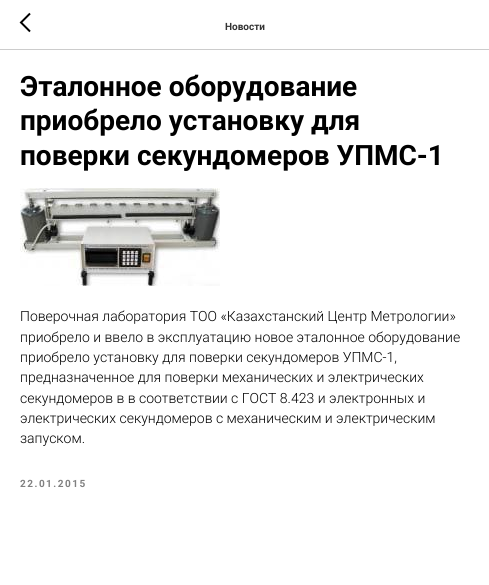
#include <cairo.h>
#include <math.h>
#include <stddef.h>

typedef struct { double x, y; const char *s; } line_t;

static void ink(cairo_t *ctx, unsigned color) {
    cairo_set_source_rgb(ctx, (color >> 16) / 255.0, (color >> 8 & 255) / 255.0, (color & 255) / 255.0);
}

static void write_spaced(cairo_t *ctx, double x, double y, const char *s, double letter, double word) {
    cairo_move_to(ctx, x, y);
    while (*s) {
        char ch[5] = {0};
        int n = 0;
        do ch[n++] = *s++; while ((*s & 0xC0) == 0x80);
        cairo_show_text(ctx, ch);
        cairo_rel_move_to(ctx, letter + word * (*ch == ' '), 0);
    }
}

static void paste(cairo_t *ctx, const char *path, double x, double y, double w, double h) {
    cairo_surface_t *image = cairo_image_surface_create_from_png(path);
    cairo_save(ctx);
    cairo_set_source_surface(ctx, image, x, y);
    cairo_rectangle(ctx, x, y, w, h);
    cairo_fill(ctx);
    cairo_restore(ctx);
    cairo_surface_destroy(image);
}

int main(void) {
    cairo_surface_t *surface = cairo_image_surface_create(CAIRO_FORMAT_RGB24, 489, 585);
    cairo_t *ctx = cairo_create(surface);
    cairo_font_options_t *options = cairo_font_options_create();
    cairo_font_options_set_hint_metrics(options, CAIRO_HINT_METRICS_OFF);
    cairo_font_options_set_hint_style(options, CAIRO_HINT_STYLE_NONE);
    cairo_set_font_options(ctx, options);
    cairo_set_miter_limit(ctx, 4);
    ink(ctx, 0xFFFFFF);
    cairo_paint(ctx);
    ink(ctx, 0xCCCCCC);
    cairo_rectangle(ctx, 0, 49, 489, 1);
    cairo_fill(ctx);
    cairo_new_path(ctx);
    cairo_move_to(ctx, 30, 31.5);
    cairo_line_to(ctx, 21, 22.5);
    cairo_line_to(ctx, 30, 13.5);
    ink(ctx, 0x000000);
    cairo_stroke(ctx);
    cairo_select_font_face(ctx, "Roboto", CAIRO_FONT_SLANT_NORMAL, CAIRO_FONT_WEIGHT_BOLD);
    cairo_set_font_size(ctx, 10);
    ink(ctx, 0x333333);
    cairo_move_to(ctx, 225, 30);
    cairo_show_text(ctx, "Новости");
    cairo_set_font_size(ctx, 28);
    ink(ctx, 0x000000);
    {
        static const line_t items[] = {
            {20, 96, "Эталонное оборудование"},
            {20, 130, "приобрело установку для"},
            {20, 165, "поверки секундомеров УПМС-1"},
        };
        for (size_t i = 0; i < sizeof items / sizeof *items; i++) {
            cairo_move_to(ctx, items[i].x, items[i].y);
            cairo_show_text(ctx, items[i].s);
        }
    }
    paste(ctx, "media/1.png", 20, 188, 200, 98);
    cairo_select_font_face(ctx, "Roboto Light", CAIRO_FONT_SLANT_NORMAL, CAIRO_FONT_WEIGHT_NORMAL);
    cairo_set_font_size(ctx, 14);
    {
        static const line_t items[] = {
            {20, 321, "Поверочная лаборатория ТОО «Казахстанский Центр Метрологии»"},
            {20, 342, "приобрело и ввело в эксплуатацию новое эталонное оборудование"},
            {20, 362, "приобрело установку для поверки секундомеров УПМС-1,"},
            {20, 382, "предназначенное для поверки механических и электрических"},
            {20, 403, "секундомеров в в соответствии с ГОСТ 8.423 и электронных и"},
            {20, 423, "электрических секундомеров с механическим и электрическим"},
            {20, 443, "запуском."},
        };
        for (size_t i = 0; i < sizeof items / sizeof *items; i++) {
            cairo_move_to(ctx, items[i].x, items[i].y);
            cairo_show_text(ctx, items[i].s);
        }
    }
    cairo_select_font_face(ctx, "Roboto", CAIRO_FONT_SLANT_NORMAL, CAIRO_FONT_WEIGHT_BOLD);
    cairo_set_font_size(ctx, 10);
    ink(ctx, 0x808080);
    write_spaced(ctx, 20, 487, "22.01.2015", 1.5, 0);
    cairo_surface_write_to_png(surface, "image.png");
    cairo_font_options_destroy(options);
    cairo_destroy(ctx);
    cairo_surface_destroy(surface);
    return 0;
}
